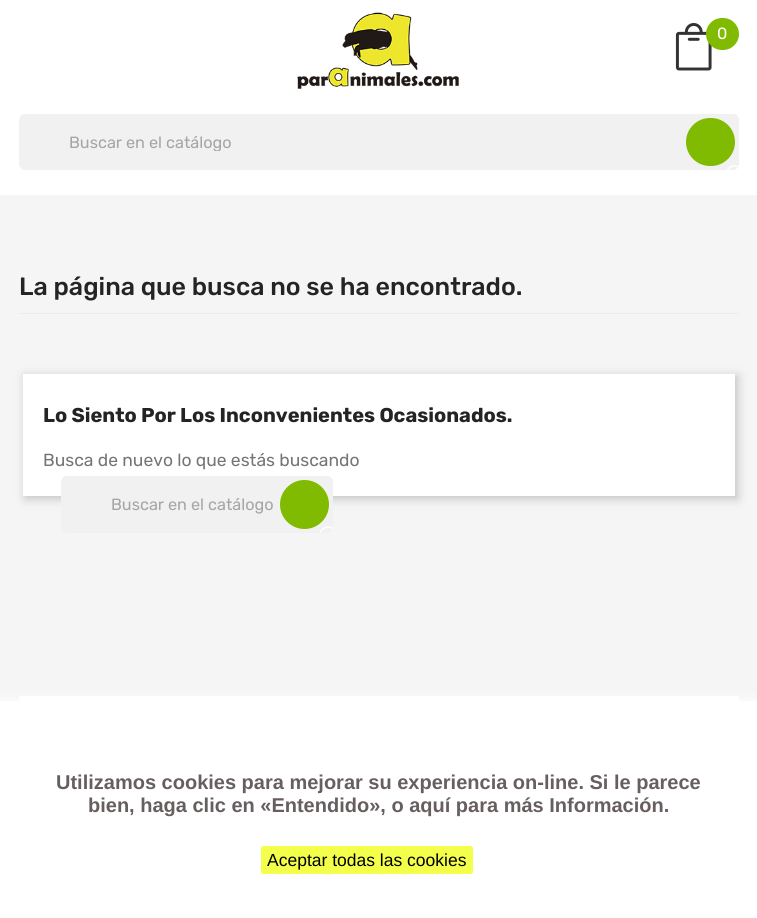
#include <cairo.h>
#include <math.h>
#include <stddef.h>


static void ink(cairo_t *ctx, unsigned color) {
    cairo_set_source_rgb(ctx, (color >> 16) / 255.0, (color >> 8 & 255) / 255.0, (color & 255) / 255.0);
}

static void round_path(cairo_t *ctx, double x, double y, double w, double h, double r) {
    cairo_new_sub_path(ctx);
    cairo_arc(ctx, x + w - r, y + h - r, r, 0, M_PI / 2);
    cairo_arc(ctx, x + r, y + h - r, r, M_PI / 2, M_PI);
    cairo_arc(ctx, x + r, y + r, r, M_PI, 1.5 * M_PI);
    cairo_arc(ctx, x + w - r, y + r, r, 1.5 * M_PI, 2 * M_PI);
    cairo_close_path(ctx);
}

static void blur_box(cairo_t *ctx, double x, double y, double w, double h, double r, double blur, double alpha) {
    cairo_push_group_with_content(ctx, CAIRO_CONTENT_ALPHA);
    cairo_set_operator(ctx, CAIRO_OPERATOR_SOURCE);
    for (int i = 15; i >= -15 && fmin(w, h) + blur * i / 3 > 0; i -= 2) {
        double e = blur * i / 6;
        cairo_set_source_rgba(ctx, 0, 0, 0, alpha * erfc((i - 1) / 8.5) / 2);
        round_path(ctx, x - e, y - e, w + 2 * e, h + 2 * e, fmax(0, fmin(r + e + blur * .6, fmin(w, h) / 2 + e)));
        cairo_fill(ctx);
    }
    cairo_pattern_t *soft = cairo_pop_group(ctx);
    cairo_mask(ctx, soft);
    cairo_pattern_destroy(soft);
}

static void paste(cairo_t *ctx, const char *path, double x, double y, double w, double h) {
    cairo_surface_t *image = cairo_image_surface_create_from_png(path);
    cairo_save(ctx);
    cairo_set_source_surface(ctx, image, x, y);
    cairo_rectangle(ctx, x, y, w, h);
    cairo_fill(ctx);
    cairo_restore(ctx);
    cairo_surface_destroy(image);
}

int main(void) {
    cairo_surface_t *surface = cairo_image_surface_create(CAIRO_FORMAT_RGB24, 757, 918);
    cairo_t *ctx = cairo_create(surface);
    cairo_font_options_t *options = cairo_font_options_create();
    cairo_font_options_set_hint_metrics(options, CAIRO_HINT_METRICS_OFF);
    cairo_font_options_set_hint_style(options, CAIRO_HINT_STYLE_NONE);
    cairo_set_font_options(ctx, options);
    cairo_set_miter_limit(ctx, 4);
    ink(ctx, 0xF5F5F5);
    cairo_paint(ctx);
    ink(ctx, 0xFFFFFF);
    cairo_rectangle(ctx, 0, 0, 757, 195);
    cairo_fill(ctx);
    paste(ctx, "media/1.png", 297, 12, 162, 77);
    paste(ctx, "media/2.png", 675, 23, 37, 48);
    ink(ctx, 0x80BB01);
    round_path(ctx, 706, 18, 33, 32, 16);
    cairo_fill(ctx);
    cairo_select_font_face(ctx, "Rubik", CAIRO_FONT_SLANT_NORMAL, CAIRO_FONT_WEIGHT_NORMAL);
    cairo_set_font_size(ctx, 16.25);
    ink(ctx, 0xFFFFFF);
    cairo_move_to(ctx, 717, 39);
    cairo_show_text(ctx, "0");
    ink(ctx, 0xF1F1F1);
    round_path(ctx, 19, 114, 720, 56, 6);
    cairo_fill(ctx);
    cairo_save(ctx);
    cairo_rectangle(ctx, 69, 133, 645, 18);
    cairo_clip(ctx);
    ink(ctx, 0xA5A5A5);
    cairo_move_to(ctx, 69, 148);
    cairo_show_text(ctx, "Buscar en el catálogo");
    cairo_restore(ctx);
    ink(ctx, 0x80BB01);
    round_path(ctx, 686, 118, 49, 48, 24);
    cairo_fill(ctx);
    paste(ctx, "media/3.png", 727, 165, 12, 5);
    ink(ctx, 0xEBEBEB);
    cairo_rectangle(ctx, 19, 313, 720, 1);
    cairo_fill(ctx);
    cairo_select_font_face(ctx, "Rubik Medium", CAIRO_FONT_SLANT_NORMAL, CAIRO_FONT_WEIGHT_NORMAL);
    cairo_set_font_size(ctx, 25);
    ink(ctx, 0x242424);
    cairo_move_to(ctx, 19, 295);
    cairo_show_text(ctx, "La página que busca no se ha encontrado.");
    ink(ctx, 0x000000);
    blur_box(ctx, 25, 376, 713, 123, 0, 5, 0.2);
    ink(ctx, 0xFFFFFF);
    cairo_rectangle(ctx, 23, 374, 712, 122);
    cairo_fill(ctx);
    cairo_select_font_face(ctx, "Rubik", CAIRO_FONT_SLANT_NORMAL, CAIRO_FONT_WEIGHT_BOLD);
    cairo_set_font_size(ctx, 20);
    ink(ctx, 0x242424);
    cairo_move_to(ctx, 43, 422);
    cairo_show_text(ctx, "Lo Siento Por Los Inconvenientes Ocasionados.");
    cairo_select_font_face(ctx, "Rubik", CAIRO_FONT_SLANT_NORMAL, CAIRO_FONT_WEIGHT_NORMAL);
    cairo_set_font_size(ctx, 17.5);
    ink(ctx, 0x757575);
    cairo_move_to(ctx, 43, 466);
    cairo_show_text(ctx, "Busca de nuevo lo que estás buscando");
    ink(ctx, 0xF1F1F1);
    round_path(ctx, 61, 476, 272, 57, 6);
    cairo_fill(ctx);
    cairo_set_font_size(ctx, 16.25);
    ink(ctx, 0xA5A5A5);
    cairo_move_to(ctx, 111, 510);
    cairo_show_text(ctx, "Buscar en el catálogo");
    ink(ctx, 0x80BB01);
    cairo_new_path(ctx);
    cairo_arc(ctx, 304.5, 504.5, 24.5, 0, 2 * M_PI);
    cairo_fill(ctx);
    paste(ctx, "media/4.png", 320, 526, 13, 7);
    ink(ctx, 0xFFFFFF);
    cairo_rectangle(ctx, 19, 696, 720, 5);
    cairo_fill(ctx);
    ink(ctx, 0xFFFFFF);
    blur_box(ctx, 0, 701, 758, 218, 0, 6, 1);
    ink(ctx, 0xFFFFFF);
    cairo_rectangle(ctx, 0, 701, 757, 217);
    cairo_fill(ctx);
    cairo_select_font_face(ctx, "Liberation Sans", CAIRO_FONT_SLANT_NORMAL, CAIRO_FONT_WEIGHT_BOLD);
    cairo_set_font_size(ctx, 20);
    ink(ctx, 0x675F5F);
    cairo_move_to(ctx, 56, 789);
    cairo_show_text(ctx, "Utilizamos cookies para mejorar su experiencia on-line. Si le parece");
    cairo_move_to(ctx, 88, 812);
    cairo_show_text(ctx, "bien, haga clic en «Entendido», o aquí para más Información.");
    ink(ctx, 0xF3FF4A);
    round_path(ctx, 261, 846, 212, 28, 2.5);
    cairo_fill(ctx);
    cairo_select_font_face(ctx, "Liberation Sans", CAIRO_FONT_SLANT_NORMAL, CAIRO_FONT_WEIGHT_NORMAL);
    cairo_set_font_size(ctx, 17.5);
    ink(ctx, 0x000000);
    cairo_move_to(ctx, 267, 866);
    cairo_show_text(ctx, "Aceptar todas las cookies");
    cairo_surface_write_to_png(surface, "image.png");
    cairo_font_options_destroy(options);
    cairo_destroy(ctx);
    cairo_surface_destroy(surface);
    return 0;
}
